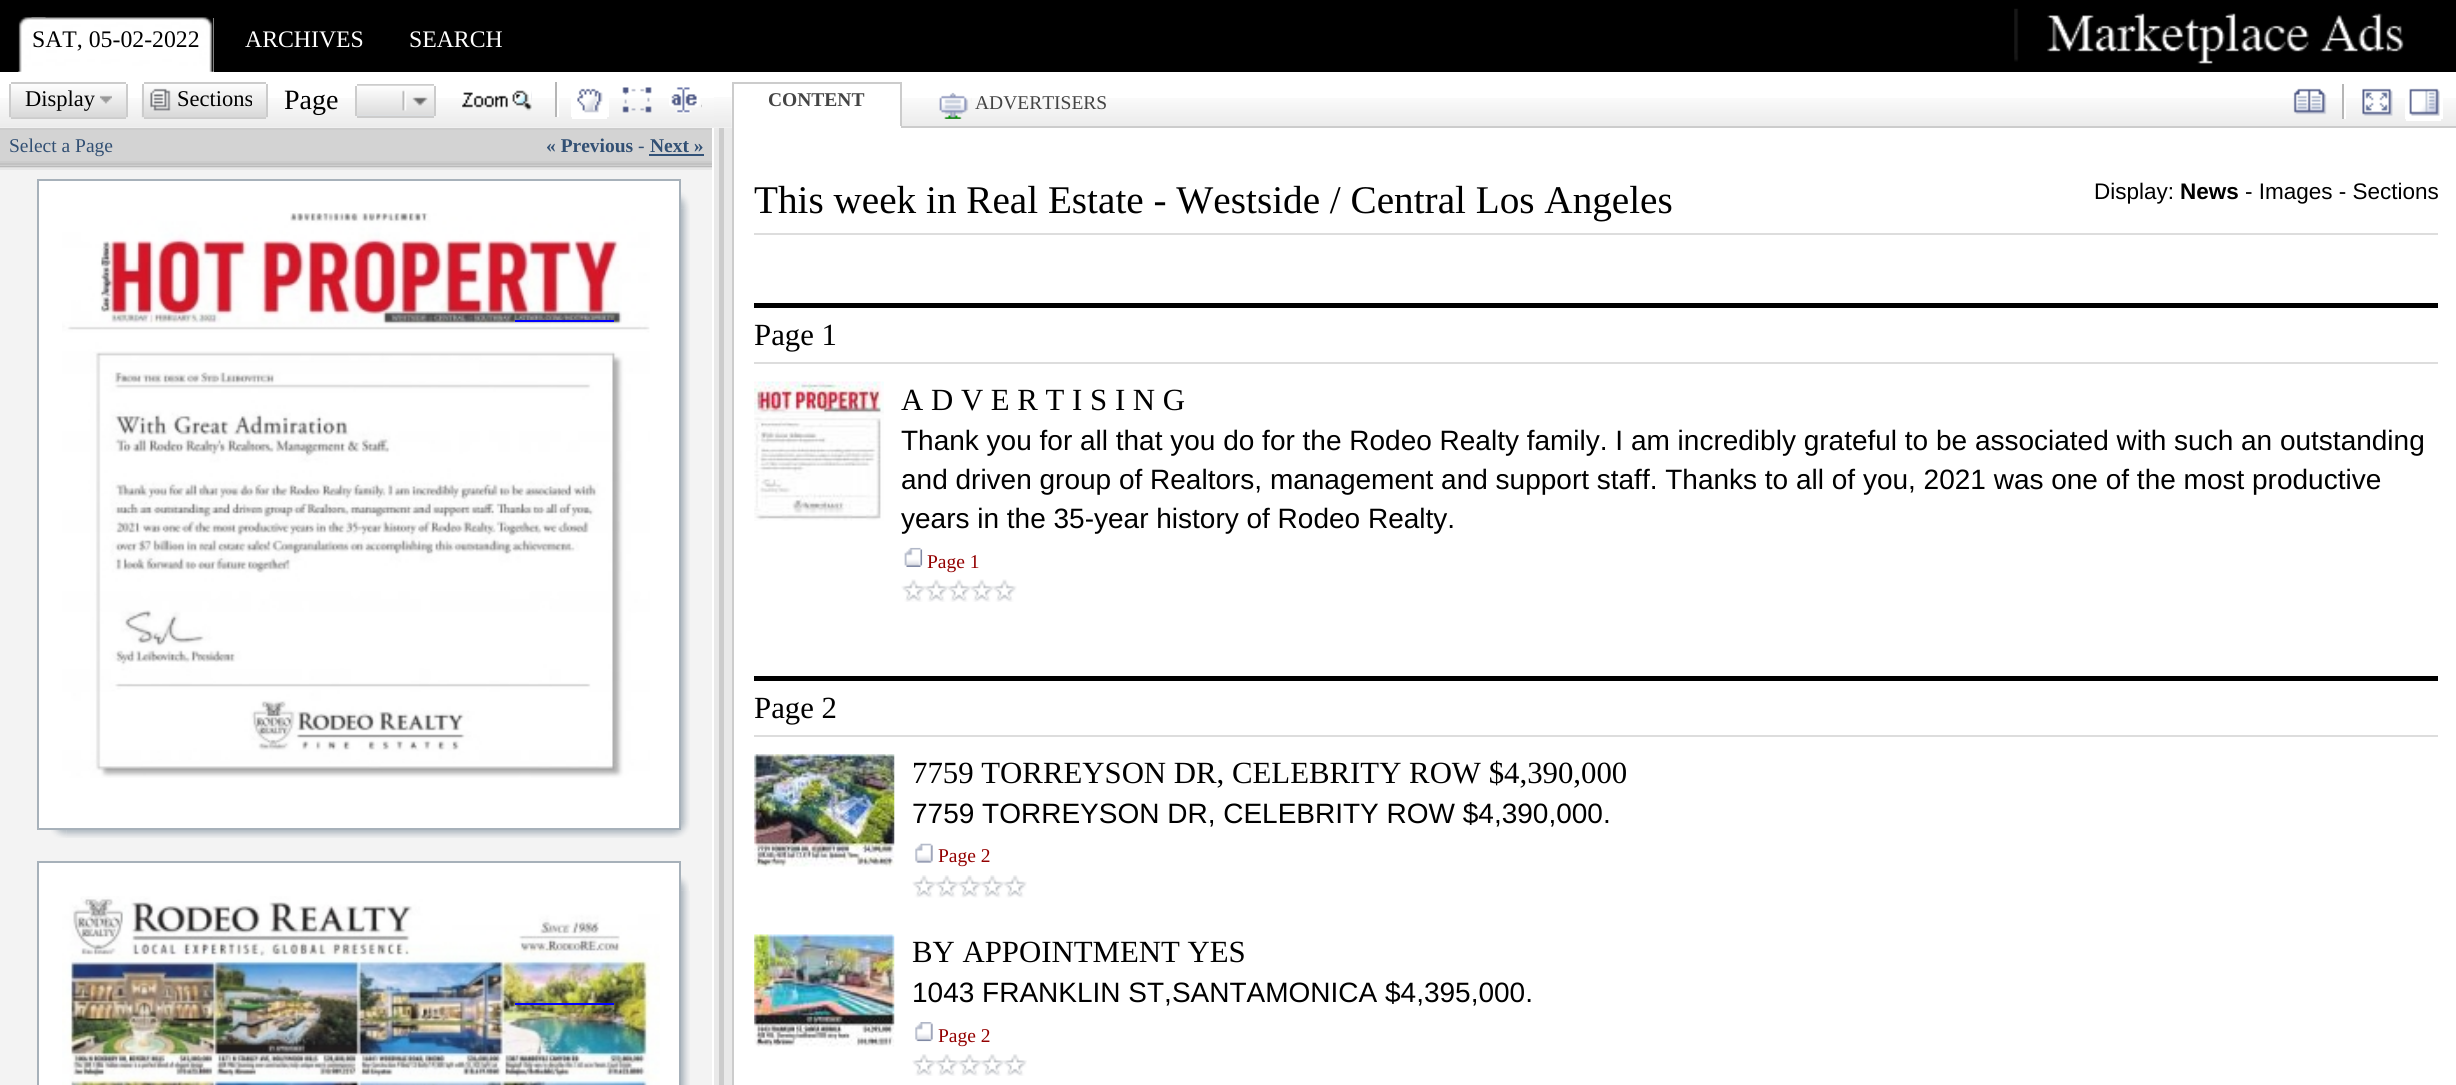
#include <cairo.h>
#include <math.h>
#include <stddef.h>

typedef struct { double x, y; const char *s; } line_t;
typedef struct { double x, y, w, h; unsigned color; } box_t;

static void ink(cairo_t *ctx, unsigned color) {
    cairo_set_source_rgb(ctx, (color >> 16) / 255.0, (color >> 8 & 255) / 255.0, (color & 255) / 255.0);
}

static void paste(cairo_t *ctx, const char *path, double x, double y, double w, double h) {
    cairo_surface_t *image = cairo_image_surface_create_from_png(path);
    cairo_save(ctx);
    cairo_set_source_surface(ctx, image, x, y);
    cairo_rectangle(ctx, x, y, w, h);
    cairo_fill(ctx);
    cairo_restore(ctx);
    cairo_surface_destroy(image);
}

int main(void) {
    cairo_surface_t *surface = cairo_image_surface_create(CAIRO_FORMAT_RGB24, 2456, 1085);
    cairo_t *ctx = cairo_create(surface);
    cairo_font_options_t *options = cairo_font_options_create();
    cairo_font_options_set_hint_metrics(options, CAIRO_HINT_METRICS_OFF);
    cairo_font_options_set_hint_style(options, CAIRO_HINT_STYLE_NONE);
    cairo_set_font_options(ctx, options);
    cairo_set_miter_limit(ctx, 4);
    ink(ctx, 0xFFFFFF);
    cairo_paint(ctx);
    ink(ctx, 0x000000);
    cairo_rectangle(ctx, 0, 0, 2456, 72);
    cairo_fill(ctx);
    paste(ctx, "media/1.png", 2014, 8, 390, 56);
    ink(ctx, 0xFFFFFF);
    cairo_rectangle(ctx, 18, 18, 196, 54);
    cairo_fill(ctx);
    paste(ctx, "media/2.png", 18, 17, 28, 55);
    paste(ctx, "media/3.png", 31, 17, 183, 55);
    cairo_select_font_face(ctx, "Liberation Serif", CAIRO_FONT_SLANT_NORMAL, CAIRO_FONT_WEIGHT_NORMAL);
    cairo_set_font_size(ctx, 23.75);
    ink(ctx, 0x000000);
    cairo_move_to(ctx, 32, 47);
    cairo_show_text(ctx, "SAT, 05-02-2022");
    ink(ctx, 0xFFFFFF);
    cairo_move_to(ctx, 245, 47);
    cairo_show_text(ctx, "ARCHIVES");
    cairo_move_to(ctx, 409, 47);
    cairo_show_text(ctx, "SEARCH");
    paste(ctx, "media/4.png", 0, 98, 714, 30);
    ink(ctx, 0xCCCCCC);
    cairo_rectangle(ctx, 11, 82, 115, 2);
    cairo_fill(ctx);
    cairo_rectangle(ctx, 11, 117, 115, 2);
    cairo_fill(ctx);
    paste(ctx, "media/5.png", 9, 84, 119, 34);
    cairo_rectangle(ctx, 126, 84, 2, 33);
    cairo_fill(ctx);
    cairo_rectangle(ctx, 9, 84, 2, 33);
    cairo_fill(ctx);
    cairo_set_font_size(ctx, 22.5);
    ink(ctx, 0x000000);
    cairo_move_to(ctx, 25, 106);
    cairo_show_text(ctx, "Display");
    paste(ctx, "media/6.png", 99, 95, 13, 9);
    ink(ctx, 0xCCCCCC);
    cairo_rectangle(ctx, 144, 82, 122, 2);
    cairo_fill(ctx);
    cairo_rectangle(ctx, 144, 117, 122, 2);
    cairo_fill(ctx);
    paste(ctx, "media/7.png", 141, 84, 127, 34);
    cairo_rectangle(ctx, 266, 84, 2, 33);
    cairo_fill(ctx);
    cairo_rectangle(ctx, 142, 84, 2, 33);
    cairo_fill(ctx);
    paste(ctx, "media/8.png", 150, 88, 21, 23);
    ink(ctx, 0x000000);
    cairo_move_to(ctx, 177, 106);
    cairo_show_text(ctx, "Sections");
    cairo_set_font_size(ctx, 28);
    cairo_move_to(ctx, 284, 109);
    cairo_show_text(ctx, "Page");
    {
        static const box_t items[] = {
            {357, 84, 77, 2, 0xCCCCCC},
            {357, 116, 77, 2, 0xCCCCCC},
            {357, 115, 77, 1, 0xDAE0E7},
        };
        for (size_t i = 0; i < sizeof items / sizeof *items; i++) {
            ink(ctx, items[i].color);
            cairo_rectangle(ctx, items[i].x, items[i].y, items[i].w, items[i].h);
            cairo_fill(ctx);
        }
    }
    paste(ctx, "media/9.png", 355, 85, 81, 31);
    ink(ctx, 0xCCCCCC);
    cairo_rectangle(ctx, 434, 86, 2, 30);
    cairo_fill(ctx);
    cairo_rectangle(ctx, 355, 86, 2, 30);
    cairo_fill(ctx);
    paste(ctx, "media/10.png", 402, 90, 26, 21);
    paste(ctx, "media/11.png", 462, 90, 70, 21);
    {
        static const box_t items[] = {
            {557, 98, 2, 19, 0xFFFFFF},
            {555, 82, 2, 35, 0xB6B6B6},
            {572, 98, 35, 21, 0xFFFFFF},
            {607, 98, 2, 19, 0xFFFFFF},
            {571, 98, 1, 19, 0xFFFFFF},
        };
        for (size_t i = 0; i < sizeof items / sizeof *items; i++) {
            ink(ctx, items[i].color);
            cairo_rectangle(ctx, items[i].x, items[i].y, items[i].w, items[i].h);
            cairo_fill(ctx);
        }
    }
    paste(ctx, "media/12.png", 577, 88, 26, 25);
    paste(ctx, "media/13.png", 622, 87, 30, 26);
    paste(ctx, "media/14.png", 669, 87, 33, 27);
    paste(ctx, "media/15.png", 714, 97, 18, 31);
    paste(ctx, "media/16.png", 731, 98, 1725, 30);
    {
        static const box_t items[] = {
            {902, 126, 1554, 2, 0xCCCCCC},
            {734, 98, 166, 28, 0xFFFFFF},
            {732, 82, 169, 2, 0xCCCCCC},
            {900, 82, 2, 46, 0xCCCCCC},
            {732, 126, 169, 2, 0xFFFFFF},
            {732, 82, 2, 1003, 0xCCCCCC},
        };
        for (size_t i = 0; i < sizeof items / sizeof *items; i++) {
            ink(ctx, items[i].color);
            cairo_rectangle(ctx, items[i].x, items[i].y, items[i].w, items[i].h);
            cairo_fill(ctx);
        }
    }
    cairo_select_font_face(ctx, "Liberation Serif", CAIRO_FONT_SLANT_NORMAL, CAIRO_FONT_WEIGHT_BOLD);
    cairo_set_font_size(ctx, 19.5);
    ink(ctx, 0x444444);
    cairo_move_to(ctx, 768, 106);
    cairo_show_text(ctx, "CONTENT");
    paste(ctx, "media/17.png", 939, 92, 33, 27);
    cairo_select_font_face(ctx, "Liberation Serif", CAIRO_FONT_SLANT_NORMAL, CAIRO_FONT_WEIGHT_NORMAL);
    cairo_move_to(ctx, 975, 109);
    cairo_show_text(ctx, "ADVERTISERS");
    {
        static const box_t items[] = {
            {0, 128, 714, 2, 0xCCCCCC},
            {712, 128, 2, 2, 0xFFFFFF},
            {0, 130, 712, 31, 0xD3D3D3},
            {0, 161, 712, 2, 0xCCCCCC},
        };
        for (size_t i = 0; i < sizeof items / sizeof *items; i++) {
            ink(ctx, items[i].color);
            cairo_rectangle(ctx, items[i].x, items[i].y, items[i].w, items[i].h);
            cairo_fill(ctx);
        }
    }
    ink(ctx, 0x325074);
    cairo_move_to(ctx, 9, 152);
    cairo_show_text(ctx, "Select a Page");
    cairo_select_font_face(ctx, "Liberation Serif", CAIRO_FONT_SLANT_NORMAL, CAIRO_FONT_WEIGHT_BOLD);
    cairo_move_to(ctx, 546, 152);
    cairo_show_text(ctx, "« Previous");
    cairo_select_font_face(ctx, "Liberation Serif", CAIRO_FONT_SLANT_NORMAL, CAIRO_FONT_WEIGHT_NORMAL);
    cairo_move_to(ctx, 638, 152);
    cairo_show_text(ctx, "-");
    cairo_select_font_face(ctx, "Liberation Serif", CAIRO_FONT_SLANT_NORMAL, CAIRO_FONT_WEIGHT_BOLD);
    cairo_move_to(ctx, 650, 152);
    cairo_show_text(ctx, "Next »");
    {
        static const box_t items[] = {
            {649, 154, 55, 2, 0x325278},
            {0, 170, 712, 915, 0xF3F3F3},
            {0, 167, 712, 1, 0xDBDBDB},
        };
        for (size_t i = 0; i < sizeof items / sizeof *items; i++) {
            ink(ctx, items[i].color);
            cairo_rectangle(ctx, items[i].x, items[i].y, items[i].w, items[i].h);
            cairo_fill(ctx);
        }
    }
    paste(ctx, "media/19.png", 681, 192, 9, 17);
    paste(ctx, "media/20.png", 681, 208, 9, 613);
    paste(ctx, "media/23.png", 672, 820, 18, 18);
    ink(ctx, 0xFFFFFF);
    cairo_rectangle(ctx, 38, 180, 642, 649);
    cairo_fill_preserve(ctx);
    ink(ctx, 0xA7B1BA);
    cairo_stroke(ctx);
    paste(ctx, "media/18.png", 62, 213, 588, 565);
    ink(ctx, 0x0000FF);
    cairo_rectangle(ctx, 515, 320, 99, 2);
    cairo_fill(ctx);
    paste(ctx, "media/22.png", 66, 830, 606, 8);
    paste(ctx, "media/21.png", 51, 830, 16, 8);
    ink(ctx, 0xFFFFFF);
    cairo_rectangle(ctx, 38, 862, 642, 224);
    cairo_fill_preserve(ctx);
    ink(ctx, 0xA7B1BA);
    cairo_stroke(ctx);
    paste(ctx, "media/24.png", 62, 896, 598, 189);
    ink(ctx, 0x0000FF);
    cairo_rectangle(ctx, 515, 1003, 99, 2);
    cairo_fill(ctx);
    paste(ctx, "media/25.png", 681, 875, 8, 16);
    paste(ctx, "media/26.png", 681, 890, 9, 195);
    {
        static const box_t items[] = {
            {714, 128, 18, 957, 0xE9E9E9},
            {719, 128, 5, 957, 0xCCCCCC},
            {754, 233, 1684, 2, 0xDDDDDD},
        };
        for (size_t i = 0; i < sizeof items / sizeof *items; i++) {
            ink(ctx, items[i].color);
            cairo_rectangle(ctx, items[i].x, items[i].y, items[i].w, items[i].h);
            cairo_fill(ctx);
        }
    }
    cairo_select_font_face(ctx, "Liberation Serif", CAIRO_FONT_SLANT_NORMAL, CAIRO_FONT_WEIGHT_NORMAL);
    cairo_set_font_size(ctx, 39.2);
    ink(ctx, 0x000000);
    cairo_move_to(ctx, 754, 213);
    cairo_show_text(ctx, "This week in Real Estate - Westside / Central Los Angeles");
    cairo_select_font_face(ctx, "Liberation Sans", CAIRO_FONT_SLANT_NORMAL, CAIRO_FONT_WEIGHT_NORMAL);
    cairo_set_font_size(ctx, 22.5);
    cairo_move_to(ctx, 2094, 199);
    cairo_show_text(ctx, "Display:");
    cairo_select_font_face(ctx, "Liberation Sans", CAIRO_FONT_SLANT_NORMAL, CAIRO_FONT_WEIGHT_BOLD);
    cairo_move_to(ctx, 2180, 199);
    cairo_show_text(ctx, "News");
    cairo_select_font_face(ctx, "Liberation Sans", CAIRO_FONT_SLANT_NORMAL, CAIRO_FONT_WEIGHT_NORMAL);
    cairo_move_to(ctx, 2245, 199);
    cairo_show_text(ctx, "- Images - Sections");
    cairo_rectangle(ctx, 754, 303, 1684, 5);
    cairo_fill(ctx);
    ink(ctx, 0xDDDDDD);
    cairo_rectangle(ctx, 754, 362, 1684, 2);
    cairo_fill(ctx);
    cairo_select_font_face(ctx, "Liberation Serif", CAIRO_FONT_SLANT_NORMAL, CAIRO_FONT_WEIGHT_NORMAL);
    cairo_set_font_size(ctx, 30.8);
    ink(ctx, 0x000000);
    cairo_move_to(ctx, 754, 345);
    cairo_show_text(ctx, "Page 1");
    paste(ctx, "media/27.png", 754, 381, 130, 140);
    cairo_move_to(ctx, 901, 410);
    cairo_show_text(ctx, "A D V E R T I S I N G");
    cairo_select_font_face(ctx, "Liberation Sans", CAIRO_FONT_SLANT_NORMAL, CAIRO_FONT_WEIGHT_NORMAL);
    cairo_set_font_size(ctx, 28);
    {
        static const line_t items[] = {
            {901, 450, "Thank you for all that you do for the Rodeo Realty family. I am incredibly grateful to be associated with such an outstanding"},
            {901, 489, "and driven group of Realtors, management and support staff. Thanks to all of you, 2021 was one of the most productive"},
            {901, 528, "years in the 35-year history of Rodeo Realty."},
        };
        for (size_t i = 0; i < sizeof items / sizeof *items; i++) {
            cairo_move_to(ctx, items[i].x, items[i].y);
            cairo_show_text(ctx, items[i].s);
        }
    }
    paste(ctx, "media/28.png", 904, 547, 19, 20);
    cairo_select_font_face(ctx, "Liberation Serif", CAIRO_FONT_SLANT_NORMAL, CAIRO_FONT_WEIGHT_NORMAL);
    cairo_set_font_size(ctx, 19.5);
    ink(ctx, 0x930000);
    cairo_move_to(ctx, 927, 568);
    cairo_show_text(ctx, "Page 1");
    paste(ctx, "media/29.png", 901, 579, 116, 23);
    ink(ctx, 0x000000);
    cairo_rectangle(ctx, 754, 676, 1684, 5);
    cairo_fill(ctx);
    ink(ctx, 0xDDDDDD);
    cairo_rectangle(ctx, 754, 735, 1684, 2);
    cairo_fill(ctx);
    cairo_set_font_size(ctx, 30.8);
    ink(ctx, 0x000000);
    cairo_move_to(ctx, 754, 718);
    cairo_show_text(ctx, "Page 2");
    paste(ctx, "media/30.png", 754, 754, 141, 113);
    cairo_move_to(ctx, 912, 783);
    cairo_show_text(ctx, "7759 TORREYSON DR, CELEBRITY ROW $4,390,000");
    cairo_select_font_face(ctx, "Liberation Sans", CAIRO_FONT_SLANT_NORMAL, CAIRO_FONT_WEIGHT_NORMAL);
    cairo_set_font_size(ctx, 28);
    cairo_move_to(ctx, 912, 823);
    cairo_show_text(ctx, "7759 TORREYSON DR, CELEBRITY ROW $4,390,000.");
    paste(ctx, "media/31.png", 915, 843, 18, 20);
    cairo_select_font_face(ctx, "Liberation Serif", CAIRO_FONT_SLANT_NORMAL, CAIRO_FONT_WEIGHT_NORMAL);
    cairo_set_font_size(ctx, 19.5);
    ink(ctx, 0x930000);
    cairo_move_to(ctx, 938, 862);
    cairo_show_text(ctx, "Page 2");
    paste(ctx, "media/32.png", 912, 875, 115, 23);
    paste(ctx, "media/33.png", 754, 934, 141, 113);
    cairo_set_font_size(ctx, 30.8);
    ink(ctx, 0x000000);
    cairo_move_to(ctx, 912, 962);
    cairo_show_text(ctx, "BY APPOINTMENT YES");
    cairo_select_font_face(ctx, "Liberation Sans", CAIRO_FONT_SLANT_NORMAL, CAIRO_FONT_WEIGHT_NORMAL);
    cairo_set_font_size(ctx, 28);
    cairo_move_to(ctx, 912, 1002);
    cairo_show_text(ctx, "1043 FRANKLIN ST,SANTAMONICA $4,395,000.");
    paste(ctx, "media/34.png", 915, 1022, 18, 20);
    cairo_select_font_face(ctx, "Liberation Serif", CAIRO_FONT_SLANT_NORMAL, CAIRO_FONT_WEIGHT_NORMAL);
    cairo_set_font_size(ctx, 19.5);
    ink(ctx, 0x930000);
    cairo_move_to(ctx, 938, 1042);
    cairo_show_text(ctx, "Page 2");
    paste(ctx, "media/35.png", 912, 1054, 115, 22);
    paste(ctx, "media/36.png", 2293, 88, 34, 27);
    ink(ctx, 0xFFFFFF);
    cairo_rectangle(ctx, 2344, 98, 2, 21);
    cairo_fill(ctx);
    ink(ctx, 0xB6B6B6);
    cairo_rectangle(ctx, 2342, 84, 2, 35);
    cairo_fill(ctx);
    paste(ctx, "media/37.png", 2362, 88, 31, 28);
    {
        static const box_t items[] = {
            {2406, 98, 35, 23, 0xFFFFFF},
            {2441, 98, 2, 21, 0xFFFFFF},
            {2405, 98, 1, 21, 0xFFFFFF},
        };
        for (size_t i = 0; i < sizeof items / sizeof *items; i++) {
            ink(ctx, items[i].color);
            cairo_rectangle(ctx, items[i].x, items[i].y, items[i].w, items[i].h);
            cairo_fill(ctx);
        }
    }
    paste(ctx, "media/38.png", 2409, 88, 31, 28);
    {
        static const box_t items[] = {
            {0, 163, 712, 2, 0xC2C2C2},
            {0, 165, 712, 1, 0xCFCFCF},
            {0, 166, 712, 1, 0xBABABA},
            {0, 168, 712, 2, 0xE7E7E7},
        };
        for (size_t i = 0; i < sizeof items / sizeof *items; i++) {
            ink(ctx, items[i].color);
            cairo_rectangle(ctx, items[i].x, items[i].y, items[i].w, items[i].h);
            cairo_fill(ctx);
        }
    }
    cairo_surface_write_to_png(surface, "image.png");
    cairo_font_options_destroy(options);
    cairo_destroy(ctx);
    cairo_surface_destroy(surface);
    return 0;
}
